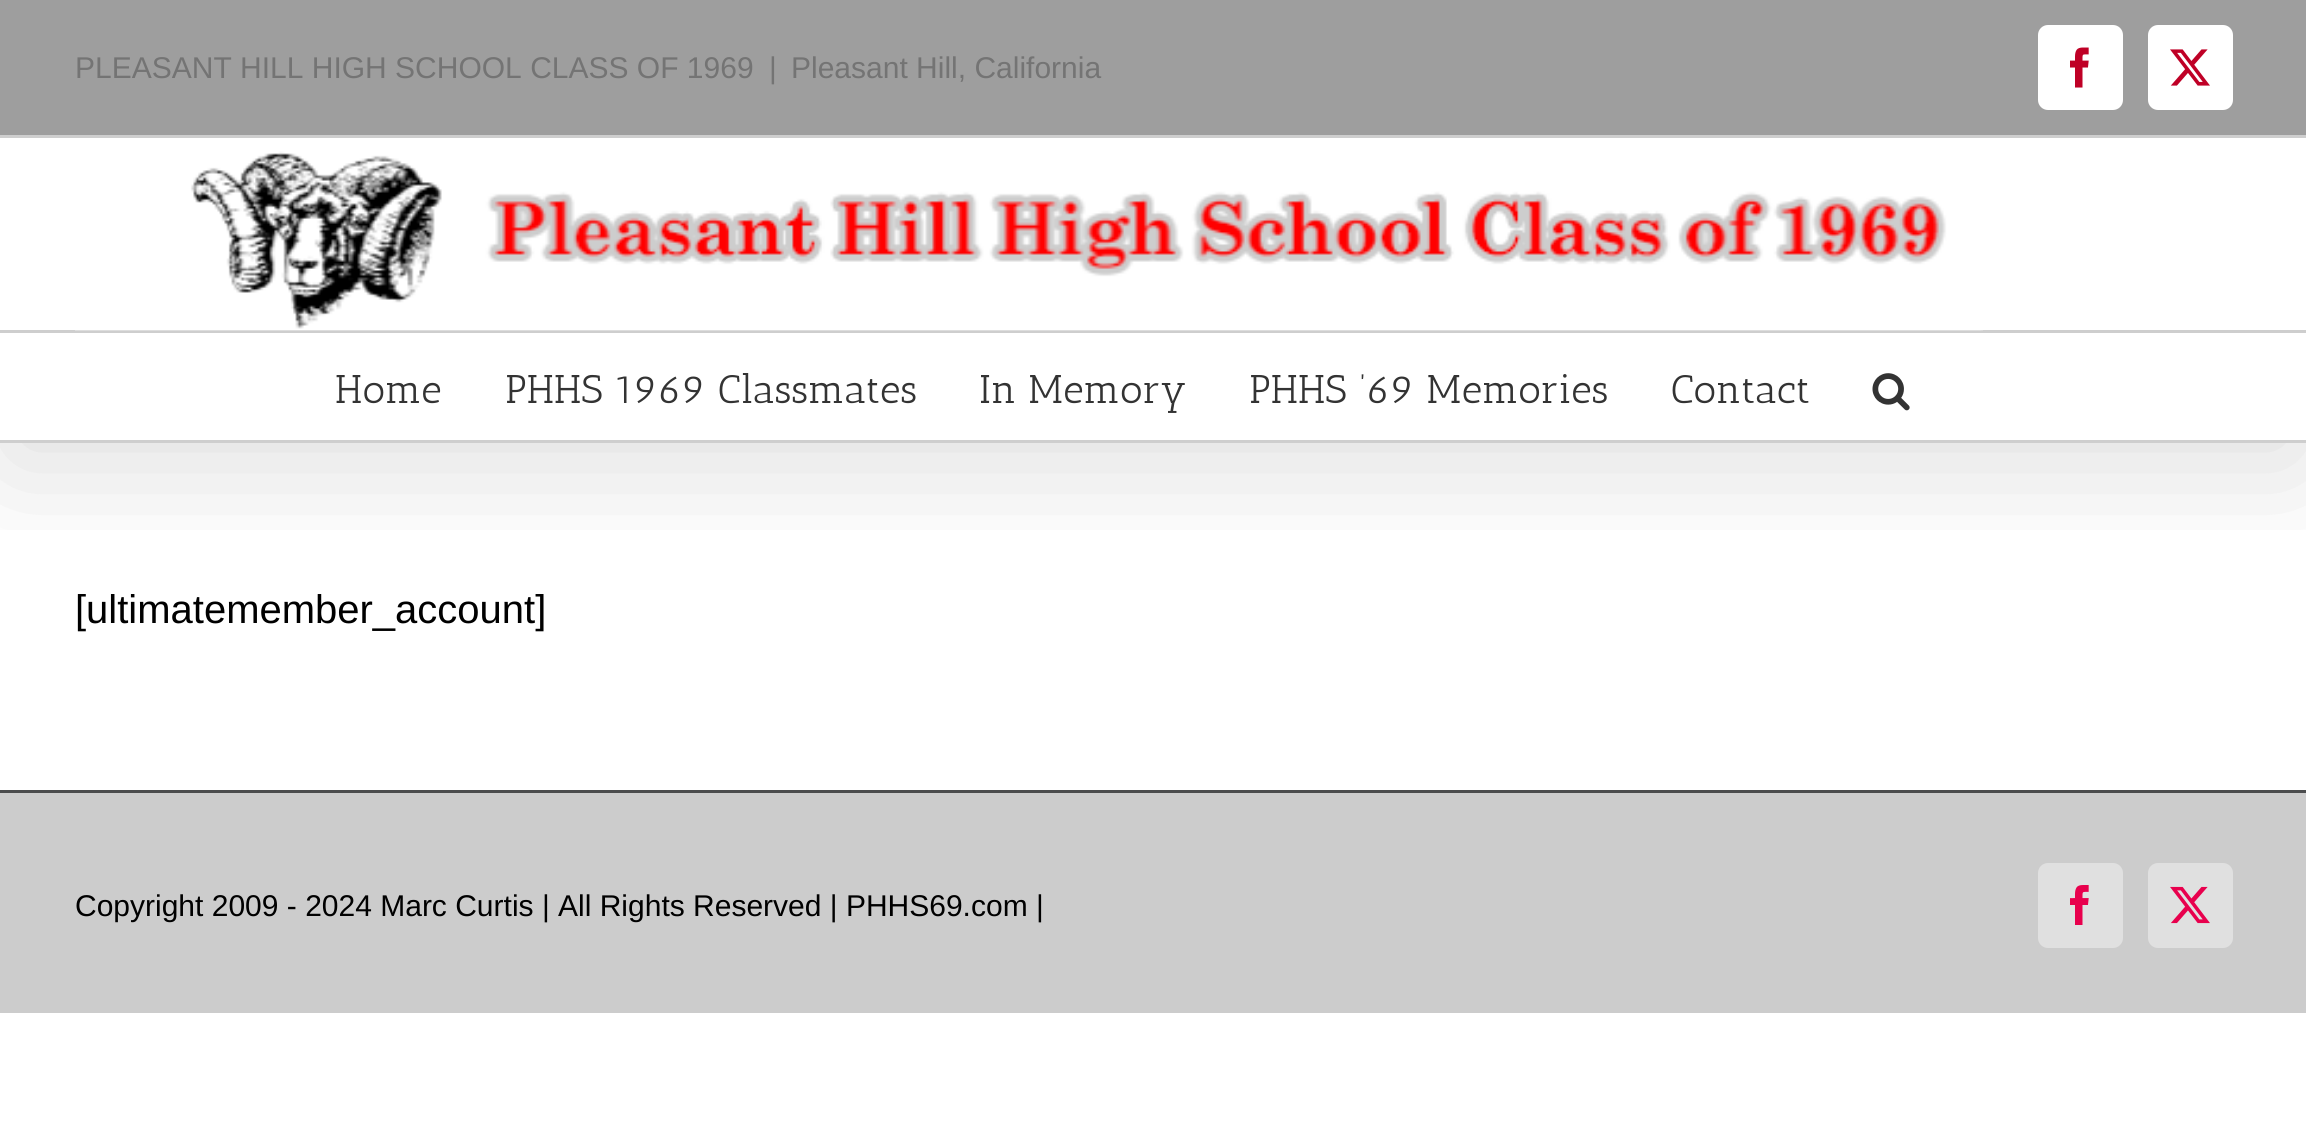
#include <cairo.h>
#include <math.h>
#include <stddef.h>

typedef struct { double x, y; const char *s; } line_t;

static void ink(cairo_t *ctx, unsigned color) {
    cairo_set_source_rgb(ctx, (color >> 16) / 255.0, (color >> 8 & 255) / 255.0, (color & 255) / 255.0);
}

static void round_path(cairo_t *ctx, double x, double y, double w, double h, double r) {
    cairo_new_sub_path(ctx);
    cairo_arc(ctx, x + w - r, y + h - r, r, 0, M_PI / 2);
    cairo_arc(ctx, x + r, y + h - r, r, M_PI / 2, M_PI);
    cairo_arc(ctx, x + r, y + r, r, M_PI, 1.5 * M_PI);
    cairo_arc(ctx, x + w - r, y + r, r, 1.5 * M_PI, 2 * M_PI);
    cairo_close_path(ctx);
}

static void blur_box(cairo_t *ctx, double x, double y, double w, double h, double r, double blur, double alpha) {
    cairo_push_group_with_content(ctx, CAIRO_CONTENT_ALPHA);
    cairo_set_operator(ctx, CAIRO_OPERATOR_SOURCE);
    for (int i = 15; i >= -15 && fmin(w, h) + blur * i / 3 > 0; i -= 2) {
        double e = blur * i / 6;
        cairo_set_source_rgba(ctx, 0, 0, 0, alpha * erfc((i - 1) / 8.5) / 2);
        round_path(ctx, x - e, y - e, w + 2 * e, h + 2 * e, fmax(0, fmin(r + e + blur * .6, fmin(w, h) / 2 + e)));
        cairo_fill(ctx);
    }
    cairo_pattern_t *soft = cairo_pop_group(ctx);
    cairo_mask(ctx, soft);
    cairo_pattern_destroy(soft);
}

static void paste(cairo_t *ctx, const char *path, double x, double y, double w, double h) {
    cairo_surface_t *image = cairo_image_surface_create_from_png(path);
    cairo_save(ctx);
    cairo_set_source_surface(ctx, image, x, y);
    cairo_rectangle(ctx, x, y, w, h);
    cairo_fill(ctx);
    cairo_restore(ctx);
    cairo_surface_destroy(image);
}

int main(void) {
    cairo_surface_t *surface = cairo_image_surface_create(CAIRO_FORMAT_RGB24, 2306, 1139);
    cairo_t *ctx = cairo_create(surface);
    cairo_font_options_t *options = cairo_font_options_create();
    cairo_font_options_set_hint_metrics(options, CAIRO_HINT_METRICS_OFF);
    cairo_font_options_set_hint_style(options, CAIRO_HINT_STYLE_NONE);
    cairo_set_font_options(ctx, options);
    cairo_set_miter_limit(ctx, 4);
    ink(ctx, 0xFFFFFF);
    cairo_paint(ctx);
    cairo_save(ctx);
    cairo_rectangle(ctx, 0, 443, 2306, 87);
    cairo_clip(ctx);
    ink(ctx, 0x000000);
    blur_box(ctx, 5, 30, 2298, 433, 0, 62.5, 0.14);
    cairo_restore(ctx);
    ink(ctx, 0x9E9E9E);
    cairo_rectangle(ctx, 0, 0, 2306, 135);
    cairo_fill(ctx);
    ink(ctx, 0xCECECE);
    cairo_rectangle(ctx, 0, 135, 2306, 3);
    cairo_fill(ctx);
    cairo_select_font_face(ctx, "Liberation Sans", CAIRO_FONT_SLANT_NORMAL, CAIRO_FONT_WEIGHT_NORMAL);
    cairo_set_font_size(ctx, 30);
    ink(ctx, 0x747474);
    {
        static const line_t items[] = {
            {75, 78, "PLEASANT HILL HIGH SCHOOL CLASS OF 1969"},
            {769, 78, "|"},
            {791, 78, "Pleasant Hill, California"},
        };
        for (size_t i = 0; i < sizeof items / sizeof *items; i++) {
            cairo_move_to(ctx, items[i].x, items[i].y);
            cairo_show_text(ctx, items[i].s);
        }
    }
    ink(ctx, 0xFFFFFF);
    round_path(ctx, 2039.5, 26.5, 82, 82, 8.5);
    cairo_fill_preserve(ctx);
    cairo_set_line_width(ctx, 3);
    cairo_stroke(ctx);
    paste(ctx, "media/1.png", 2070, 47, 19, 41);
    round_path(ctx, 2149.5, 26.5, 82, 82, 8.5);
    cairo_fill_preserve(ctx);
    cairo_stroke(ctx);
    paste(ctx, "media/2.png", 2170, 49, 40, 37);
    ink(ctx, 0xCECECE);
    cairo_rectangle(ctx, 0, 330, 2306, 3);
    cairo_fill(ctx);
    paste(ctx, "media/3.png", 75, 151, 1908, 180);
    cairo_rectangle(ctx, 0, 440, 2306, 3);
    cairo_fill(ctx);
    cairo_select_font_face(ctx, "Antic Slab", CAIRO_FONT_SLANT_NORMAL, CAIRO_FONT_WEIGHT_NORMAL);
    cairo_set_font_size(ctx, 40);
    ink(ctx, 0x333333);
    {
        static const line_t items[] = {
            {335, 403, "Home"},
            {505, 403, "PHHS 1969 Classmates"},
            {979, 403, "In Memory"},
            {1249, 403, "PHHS ’69 Memories"},
            {1671, 403, "Contact"},
        };
        for (size_t i = 0; i < sizeof items / sizeof *items; i++) {
            cairo_move_to(ctx, items[i].x, items[i].y);
            cairo_show_text(ctx, items[i].s);
        }
    }
    paste(ctx, "media/4.png", 1872, 373, 38, 38);
    cairo_select_font_face(ctx, "Liberation Sans", CAIRO_FONT_SLANT_NORMAL, CAIRO_FONT_WEIGHT_NORMAL);
    ink(ctx, 0x000000);
    cairo_move_to(ctx, 75, 623);
    cairo_show_text(ctx, "[ultimatemember_account]");
    ink(ctx, 0xCCCCCC);
    cairo_rectangle(ctx, 0, 793, 2306, 220);
    cairo_fill(ctx);
    ink(ctx, 0x4B4C4D);
    cairo_rectangle(ctx, 0, 790, 2306, 3);
    cairo_fill(ctx);
    cairo_set_font_size(ctx, 30);
    ink(ctx, 0x000000);
    cairo_move_to(ctx, 75, 916);
    cairo_show_text(ctx, "Copyright 2009 - 2024 Marc Curtis | All Rights Reserved | PHHS69.com |");
    ink(ctx, 0xE0E0E0);
    round_path(ctx, 2039.5, 864.5, 82, 82, 8.5);
    cairo_fill_preserve(ctx);
    cairo_stroke(ctx);
    paste(ctx, "media/5.png", 2070, 885, 19, 40);
    round_path(ctx, 2149.5, 864.5, 82, 82, 8.5);
    cairo_fill_preserve(ctx);
    cairo_stroke(ctx);
    paste(ctx, "media/6.png", 2170, 886, 40, 38);
    cairo_surface_write_to_png(surface, "image.png");
    cairo_font_options_destroy(options);
    cairo_destroy(ctx);
    cairo_surface_destroy(surface);
    return 0;
}
